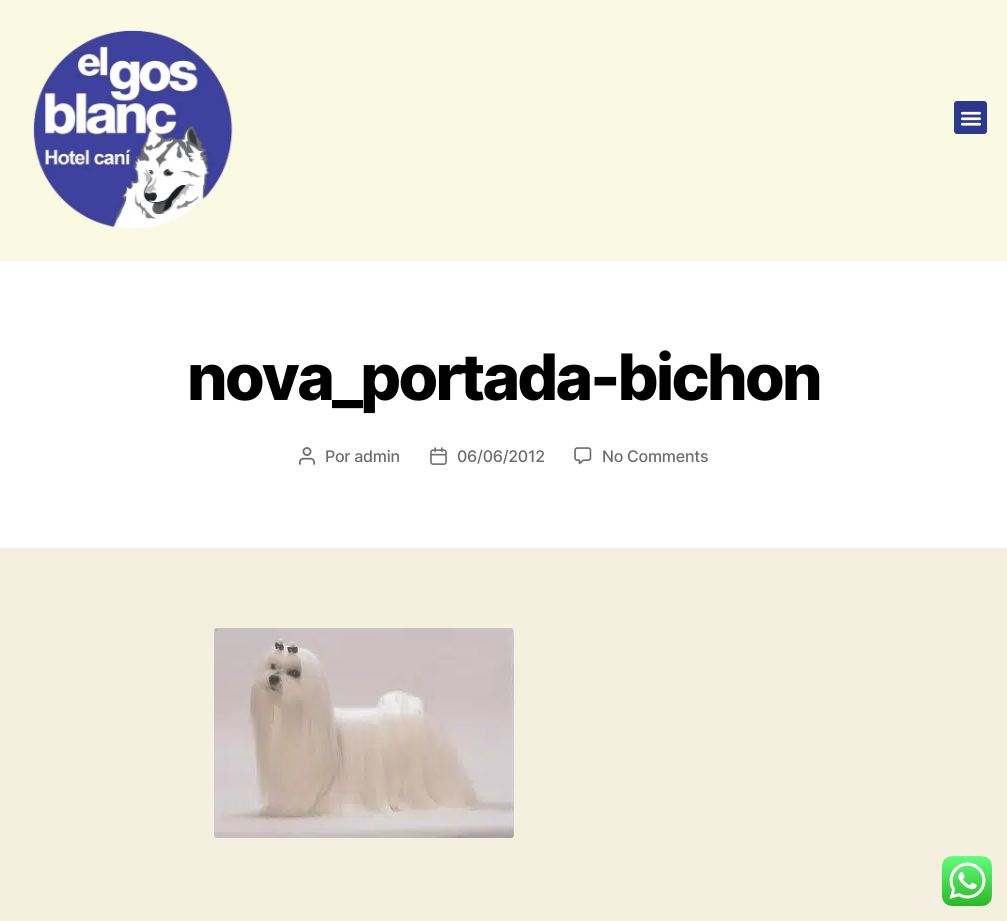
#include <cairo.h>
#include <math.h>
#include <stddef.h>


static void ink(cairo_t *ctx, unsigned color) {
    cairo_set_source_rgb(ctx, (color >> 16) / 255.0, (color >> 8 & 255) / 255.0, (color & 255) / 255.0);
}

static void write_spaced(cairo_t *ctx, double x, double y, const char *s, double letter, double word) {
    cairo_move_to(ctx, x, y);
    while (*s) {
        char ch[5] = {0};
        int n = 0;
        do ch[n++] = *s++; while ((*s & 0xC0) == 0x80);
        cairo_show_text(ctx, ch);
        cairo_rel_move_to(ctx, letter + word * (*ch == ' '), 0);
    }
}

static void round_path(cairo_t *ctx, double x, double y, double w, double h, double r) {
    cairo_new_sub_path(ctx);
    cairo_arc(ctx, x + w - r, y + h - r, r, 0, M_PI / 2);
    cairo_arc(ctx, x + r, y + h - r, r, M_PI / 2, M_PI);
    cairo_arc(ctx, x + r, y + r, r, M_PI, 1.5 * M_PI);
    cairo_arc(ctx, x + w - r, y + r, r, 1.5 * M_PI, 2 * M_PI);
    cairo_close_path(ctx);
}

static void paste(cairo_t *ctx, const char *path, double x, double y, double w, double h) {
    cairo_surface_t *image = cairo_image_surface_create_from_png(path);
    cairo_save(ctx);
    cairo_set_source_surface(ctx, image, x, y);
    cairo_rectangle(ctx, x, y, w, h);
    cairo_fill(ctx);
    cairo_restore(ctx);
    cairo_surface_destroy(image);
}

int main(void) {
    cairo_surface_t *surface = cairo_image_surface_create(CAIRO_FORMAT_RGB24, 1007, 921);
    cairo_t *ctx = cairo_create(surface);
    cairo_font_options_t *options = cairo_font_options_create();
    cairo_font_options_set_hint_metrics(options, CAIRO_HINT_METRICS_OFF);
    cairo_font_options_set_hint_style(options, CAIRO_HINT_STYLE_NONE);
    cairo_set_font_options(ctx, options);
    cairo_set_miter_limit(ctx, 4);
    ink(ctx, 0xF5EFE0);
    cairo_paint(ctx);
    ink(ctx, 0xFAF9E2);
    cairo_rectangle(ctx, 0, 0, 1007, 261);
    cairo_fill(ctx);
    paste(ctx, "media/1.png", 33, 30, 200, 199);
    ink(ctx, 0x2A3890);
    round_path(ctx, 954, 101, 33, 33, 3);
    cairo_fill(ctx);
    paste(ctx, "media/2.png", 960, 111, 22, 15);
    ink(ctx, 0xFFFFFF);
    cairo_rectangle(ctx, 0, 261, 1007, 287);
    cairo_fill(ctx);
    cairo_select_font_face(ctx, "Inter ExtraBold", CAIRO_FONT_SLANT_NORMAL, CAIRO_FONT_WEIGHT_NORMAL);
    cairo_set_font_size(ctx, 64);
    ink(ctx, 0x000000);
    write_spaced(ctx, 187, 400, "nova_portada-bichon", -2.7, 0);
    paste(ctx, "media/3.png", 299, 447, 16, 18);
    cairo_select_font_face(ctx, "Inter Medium", CAIRO_FONT_SLANT_NORMAL, CAIRO_FONT_WEIGHT_NORMAL);
    cairo_set_font_size(ctx, 16);
    ink(ctx, 0x6D6D6D);
    write_spaced(ctx, 325, 462, "Por admin", -0.25, 0);
    paste(ctx, "media/4.png", 430, 447, 17, 18);
    write_spaced(ctx, 457, 462, "06/06/2012", -0.25, 0);
    paste(ctx, "media/5.png", 574, 447, 18, 18);
    write_spaced(ctx, 602, 462, "No Comments", -0.25, 0);
    paste(ctx, "media/6.png", 214, 628, 300, 210);
    paste(ctx, "media/7.png", 942, 856, 50, 50);
    cairo_surface_write_to_png(surface, "image.png");
    cairo_font_options_destroy(options);
    cairo_destroy(ctx);
    cairo_surface_destroy(surface);
    return 0;
}
